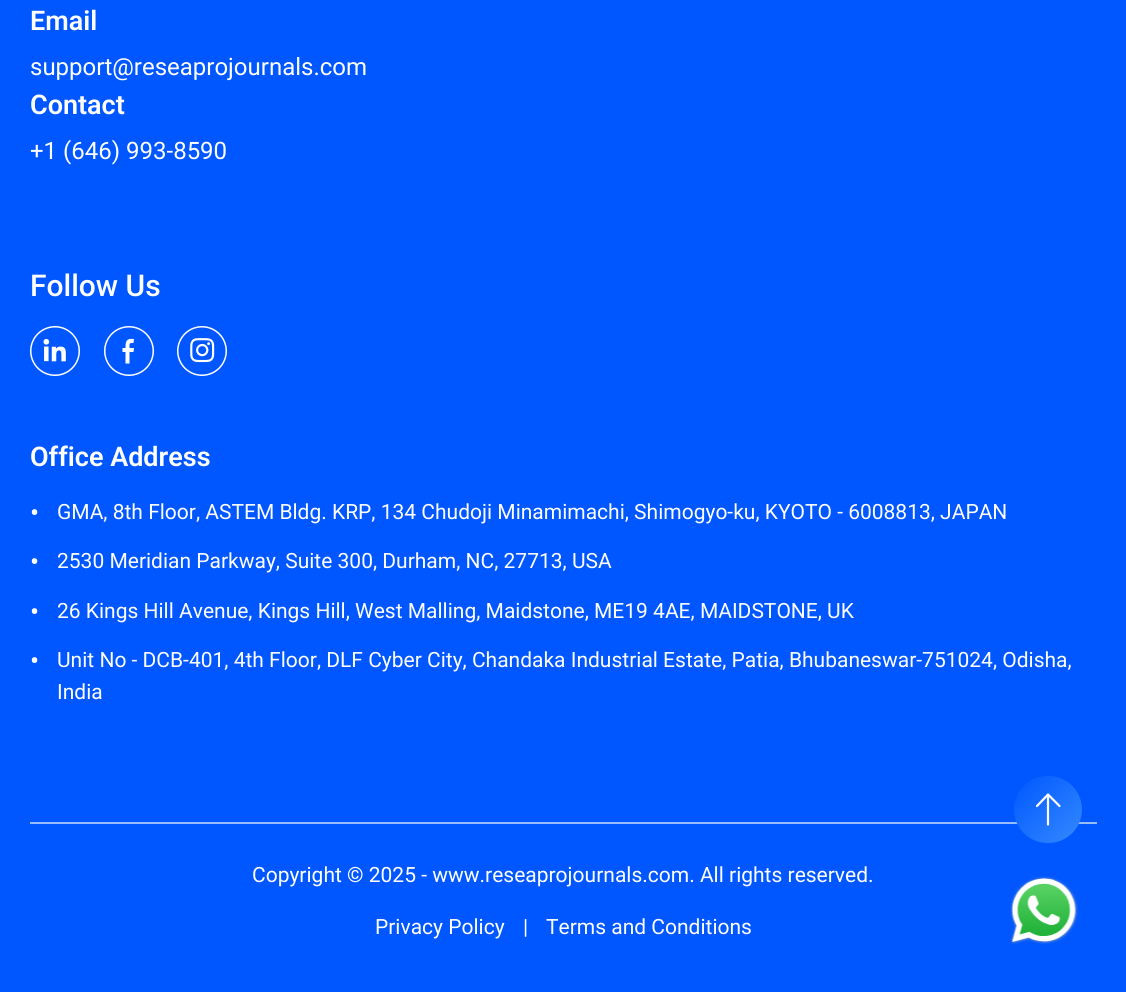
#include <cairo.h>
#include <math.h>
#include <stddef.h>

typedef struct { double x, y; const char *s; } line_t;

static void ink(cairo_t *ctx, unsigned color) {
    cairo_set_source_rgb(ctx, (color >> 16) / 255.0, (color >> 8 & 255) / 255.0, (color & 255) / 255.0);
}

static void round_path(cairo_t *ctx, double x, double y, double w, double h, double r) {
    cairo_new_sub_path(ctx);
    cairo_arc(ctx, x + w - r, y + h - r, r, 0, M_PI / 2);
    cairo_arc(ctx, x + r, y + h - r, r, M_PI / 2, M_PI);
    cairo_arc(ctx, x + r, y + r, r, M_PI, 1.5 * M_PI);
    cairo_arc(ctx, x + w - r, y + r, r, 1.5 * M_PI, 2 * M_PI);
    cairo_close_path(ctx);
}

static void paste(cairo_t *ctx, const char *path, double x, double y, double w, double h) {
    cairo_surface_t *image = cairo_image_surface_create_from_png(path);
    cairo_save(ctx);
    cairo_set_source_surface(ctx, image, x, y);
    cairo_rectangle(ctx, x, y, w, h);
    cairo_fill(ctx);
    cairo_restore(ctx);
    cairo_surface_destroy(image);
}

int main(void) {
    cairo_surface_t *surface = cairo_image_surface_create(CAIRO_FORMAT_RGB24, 1126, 992);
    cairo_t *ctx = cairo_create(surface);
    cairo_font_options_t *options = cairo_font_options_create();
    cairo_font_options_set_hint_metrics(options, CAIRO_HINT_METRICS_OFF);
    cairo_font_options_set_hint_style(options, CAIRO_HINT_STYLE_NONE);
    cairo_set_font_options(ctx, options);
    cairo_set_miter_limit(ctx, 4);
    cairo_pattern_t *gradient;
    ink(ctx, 0x0057FF);
    cairo_paint(ctx);
    cairo_select_font_face(ctx, "Roboto SemiBold", CAIRO_FONT_SLANT_NORMAL, CAIRO_FONT_WEIGHT_NORMAL);
    cairo_set_font_size(ctx, 27);
    ink(ctx, 0xFFFFFF);
    cairo_move_to(ctx, 30, 30);
    cairo_show_text(ctx, "Email");
    cairo_select_font_face(ctx, "Roboto", CAIRO_FONT_SLANT_NORMAL, CAIRO_FONT_WEIGHT_NORMAL);
    cairo_set_font_size(ctx, 24);
    cairo_move_to(ctx, 30, 75);
    cairo_show_text(ctx, "support@reseaprojournals.com");
    cairo_select_font_face(ctx, "Roboto SemiBold", CAIRO_FONT_SLANT_NORMAL, CAIRO_FONT_WEIGHT_NORMAL);
    cairo_set_font_size(ctx, 27);
    cairo_move_to(ctx, 30, 114);
    cairo_show_text(ctx, "Contact");
    cairo_select_font_face(ctx, "Roboto", CAIRO_FONT_SLANT_NORMAL, CAIRO_FONT_WEIGHT_NORMAL);
    cairo_set_font_size(ctx, 24);
    cairo_move_to(ctx, 30, 159);
    cairo_show_text(ctx, "+1 (646) 993-8590");
    cairo_select_font_face(ctx, "Roboto Medium", CAIRO_FONT_SLANT_NORMAL, CAIRO_FONT_WEIGHT_NORMAL);
    cairo_set_font_size(ctx, 30);
    cairo_move_to(ctx, 30, 296);
    cairo_show_text(ctx, "Follow Us");
    paste(ctx, "media/1.png", 30, 326, 50, 50);
    cairo_arc(ctx, 129, 351, 24.25, 0, 2 * M_PI);
    cairo_set_line_width(ctx, 1.5);
    cairo_stroke(ctx);
    cairo_new_path(ctx);
    cairo_move_to(ctx, 125.5, 363.5);
    cairo_line_to(ctx, 125.5, 352);
    cairo_line_to(ctx, 122.5, 352);
    cairo_line_to(ctx, 122.5, 348);
    cairo_line_to(ctx, 125.5, 348);
    cairo_curve_to(ctx, 125.5, 341.5, 126, 338, 134, 339);
    cairo_line_to(ctx, 133.5, 343);
    cairo_curve_to(ctx, 129, 343, 129.5, 343, 129.5, 348);
    cairo_line_to(ctx, 134, 348);
    cairo_line_to(ctx, 133.5, 352);
    cairo_line_to(ctx, 129.5, 352);
    cairo_line_to(ctx, 129.5, 363.5);
    cairo_close_path(ctx);
    cairo_fill(ctx);
    paste(ctx, "media/2.png", 177, 326, 50, 50);
    cairo_select_font_face(ctx, "Roboto SemiBold", CAIRO_FONT_SLANT_NORMAL, CAIRO_FONT_WEIGHT_NORMAL);
    cairo_set_font_size(ctx, 27);
    cairo_move_to(ctx, 30, 466);
    cairo_show_text(ctx, "Office Address");
    cairo_select_font_face(ctx, "Roboto", CAIRO_FONT_SLANT_NORMAL, CAIRO_FONT_WEIGHT_NORMAL);
    cairo_move_to(ctx, 30, 522);
    cairo_show_text(ctx, "•");
    cairo_set_font_size(ctx, 21);
    cairo_move_to(ctx, 57, 519);
    cairo_show_text(ctx, "GMA, 8th Floor, ASTEM Bldg. KRP, 134 Chudoji Minamimachi, Shimogyo-ku, KYOTO - 6008813, JAPAN");
    cairo_set_font_size(ctx, 27);
    cairo_move_to(ctx, 30, 571);
    cairo_show_text(ctx, "•");
    cairo_set_font_size(ctx, 21);
    cairo_move_to(ctx, 57, 568);
    cairo_show_text(ctx, "2530 Meridian Parkway, Suite 300, Durham, NC, 27713, USA");
    cairo_set_font_size(ctx, 27);
    cairo_move_to(ctx, 30, 621);
    cairo_show_text(ctx, "•");
    cairo_set_font_size(ctx, 21);
    cairo_move_to(ctx, 57, 618);
    cairo_show_text(ctx, "26 Kings Hill Avenue, Kings Hill, West Malling, Maidstone, ME19 4AE, MAIDSTONE, UK");
    cairo_set_font_size(ctx, 27);
    cairo_move_to(ctx, 30, 670);
    cairo_show_text(ctx, "•");
    cairo_set_font_size(ctx, 21);
    cairo_move_to(ctx, 57, 667);
    cairo_show_text(ctx, "Unit No - DCB-401, 4th Floor, DLF Cyber City, Chandaka Industrial Estate, Patia, Bhubaneswar-751024, Odisha,");
    cairo_move_to(ctx, 57, 699);
    cairo_show_text(ctx, "India");
    ink(ctx, 0x99BCFF);
    cairo_rectangle(ctx, 30, 822, 1067, 2);
    cairo_fill(ctx);
    ink(ctx, 0xFFFFFF);
    {
        static const line_t items[] = {
            {252, 882, "Copyright © 2025 - www.reseaprojournals.com. All rights reserved."},
            {375, 934, "Privacy Policy"},
            {523, 934, "|"},
            {546, 934, "Terms and Conditions"},
        };
        for (size_t i = 0; i < sizeof items / sizeof *items; i++) {
            cairo_move_to(ctx, items[i].x, items[i].y);
            cairo_show_text(ctx, items[i].s);
        }
    }
    gradient = cairo_pattern_create_linear(1014, 776, 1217, 978);
    cairo_pattern_add_color_stop_rgba(gradient, 0, 0, 0.341, 1, 1);
    cairo_pattern_add_color_stop_rgba(gradient, 0.5, 0.31, 0.639, 1, 1);
    cairo_pattern_add_color_stop_rgba(gradient, 1, 0, 0.341, 1, 1);
    cairo_set_source(ctx, gradient);
    cairo_pattern_destroy(gradient);
    round_path(ctx, 1014, 776, 68, 67, 33.5);
    cairo_fill(ctx);
    cairo_new_path(ctx);
    cairo_move_to(ctx, 1048, 824.5);
    cairo_line_to(ctx, 1048, 794.5);
    cairo_move_to(ctx, 1048, 794.5);
    cairo_line_to(ctx, 1059.5, 806);
    cairo_move_to(ctx, 1048, 794.5);
    cairo_line_to(ctx, 1037, 806);
    ink(ctx, 0xFFFFFF);
    cairo_set_line_width(ctx, 2.2);
    cairo_set_line_cap(ctx, CAIRO_LINE_CAP_ROUND);
    cairo_set_line_join(ctx, CAIRO_LINE_JOIN_ROUND);
    cairo_stroke(ctx);
    paste(ctx, "media/3.png", 1010, 876, 68, 68);
    cairo_surface_write_to_png(surface, "image.png");
    cairo_font_options_destroy(options);
    cairo_destroy(ctx);
    cairo_surface_destroy(surface);
    return 0;
}
